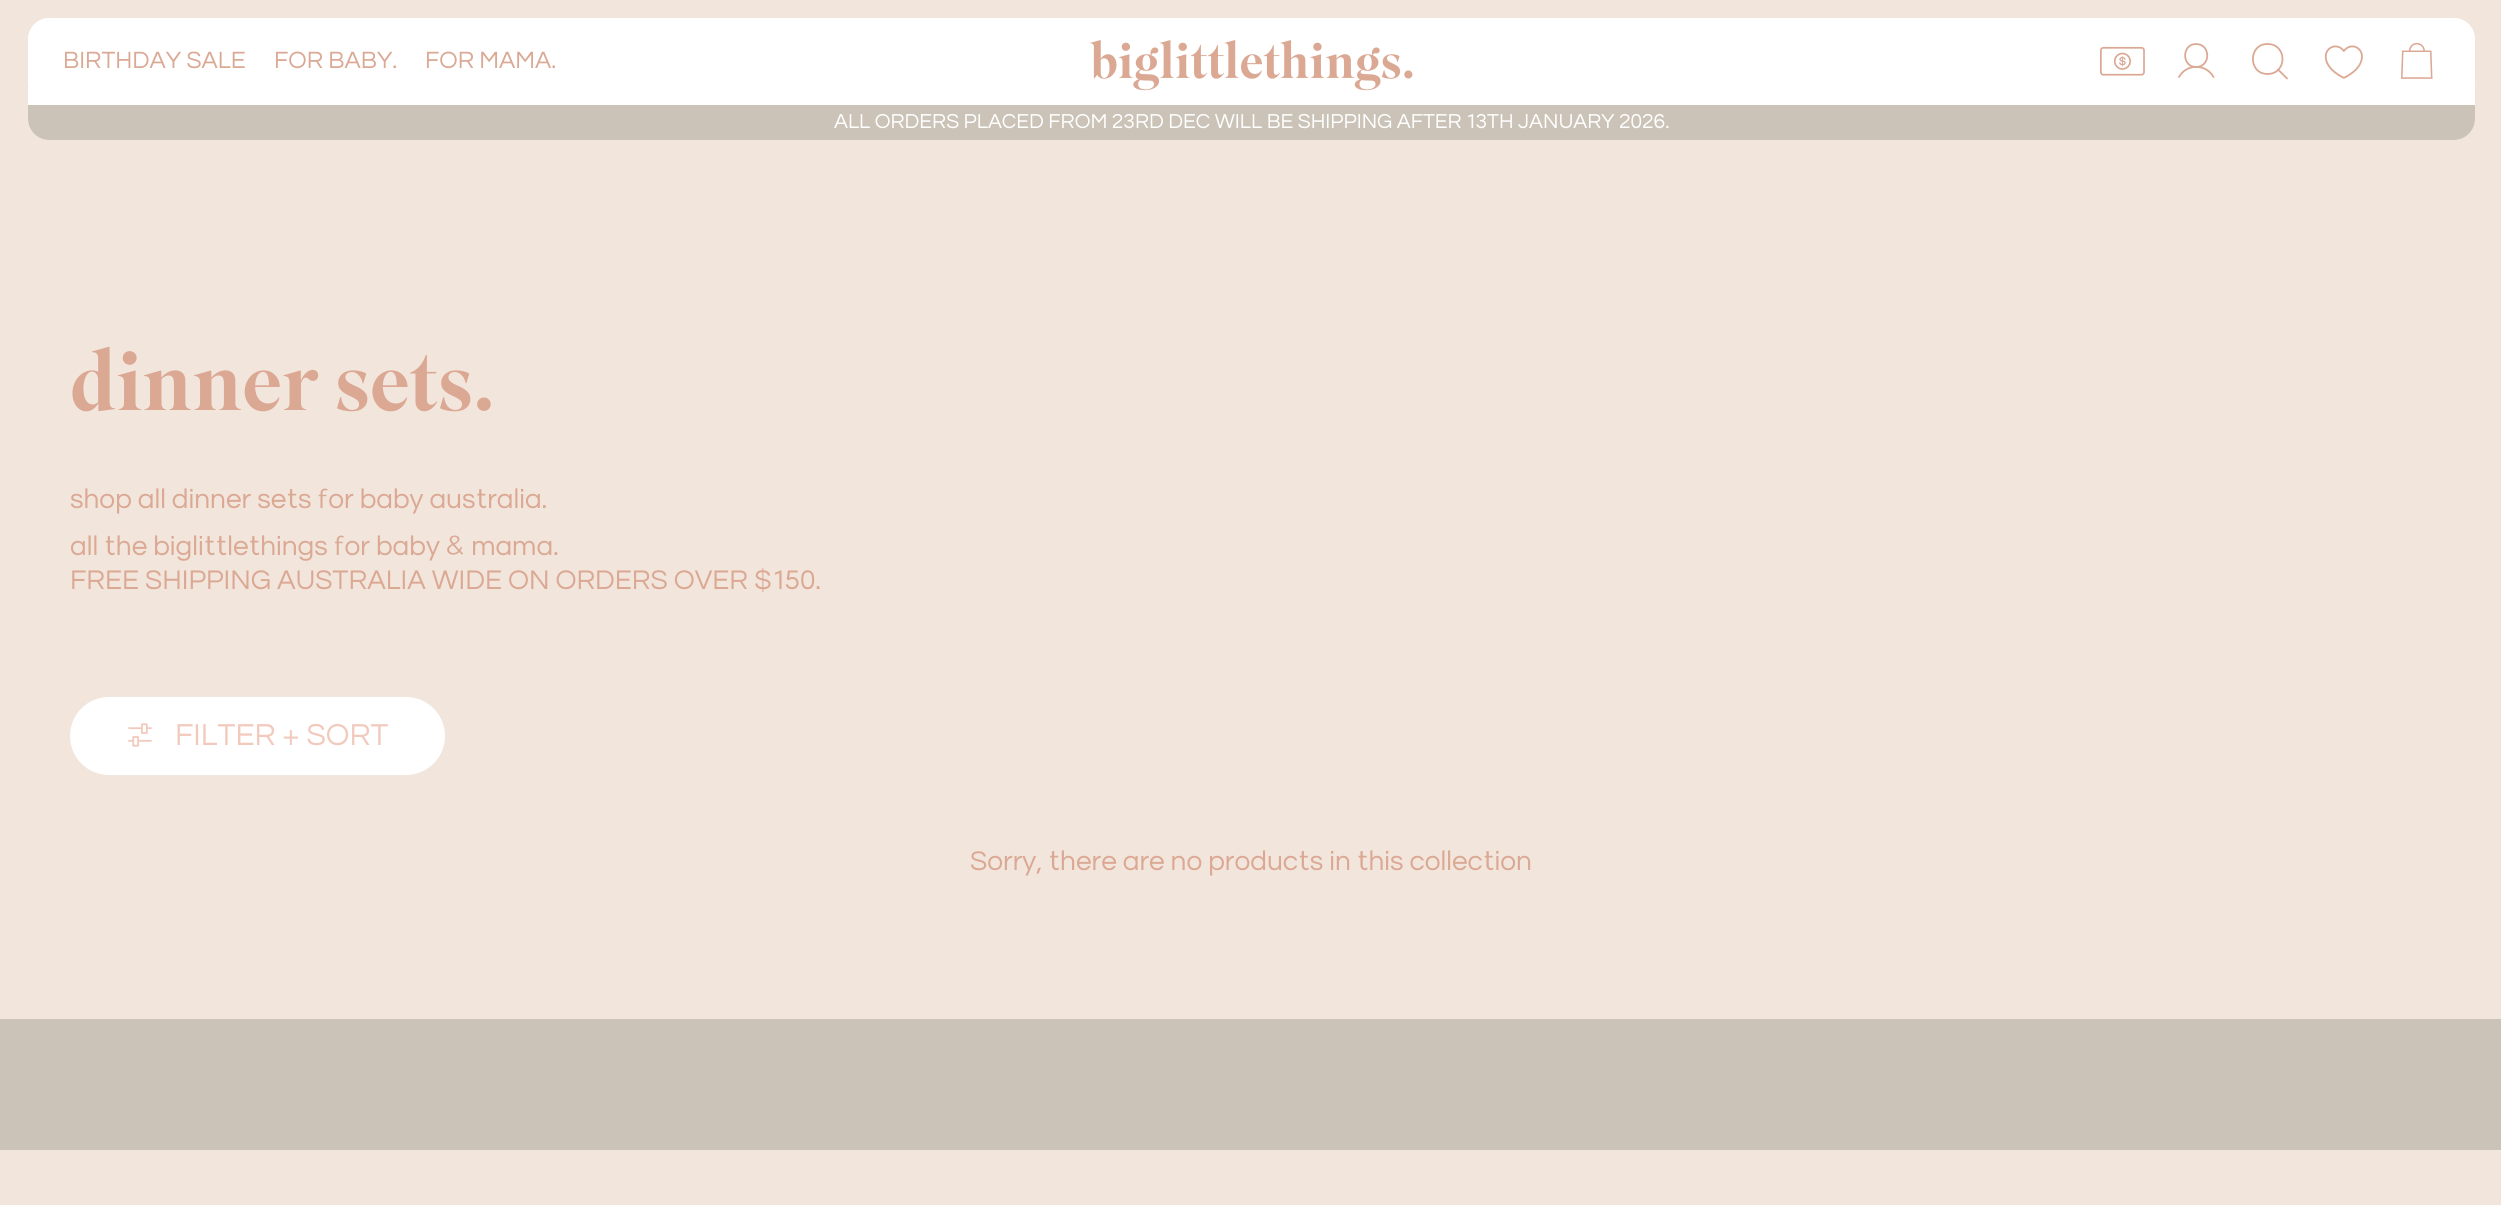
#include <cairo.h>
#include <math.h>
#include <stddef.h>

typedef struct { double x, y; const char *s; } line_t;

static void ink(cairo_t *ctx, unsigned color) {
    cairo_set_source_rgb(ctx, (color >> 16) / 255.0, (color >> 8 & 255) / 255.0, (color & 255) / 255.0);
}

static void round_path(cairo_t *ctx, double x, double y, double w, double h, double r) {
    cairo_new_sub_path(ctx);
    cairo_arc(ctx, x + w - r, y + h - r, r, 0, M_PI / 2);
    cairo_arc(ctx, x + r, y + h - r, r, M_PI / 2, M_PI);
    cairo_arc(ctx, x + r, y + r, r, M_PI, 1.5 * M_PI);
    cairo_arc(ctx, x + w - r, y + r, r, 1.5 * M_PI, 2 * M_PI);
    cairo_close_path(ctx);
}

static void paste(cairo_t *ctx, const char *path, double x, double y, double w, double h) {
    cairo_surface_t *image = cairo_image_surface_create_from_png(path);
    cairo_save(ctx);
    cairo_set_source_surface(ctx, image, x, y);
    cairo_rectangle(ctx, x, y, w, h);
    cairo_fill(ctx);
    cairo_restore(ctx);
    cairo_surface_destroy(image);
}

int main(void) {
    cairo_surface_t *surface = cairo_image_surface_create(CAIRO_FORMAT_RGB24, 2501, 1205);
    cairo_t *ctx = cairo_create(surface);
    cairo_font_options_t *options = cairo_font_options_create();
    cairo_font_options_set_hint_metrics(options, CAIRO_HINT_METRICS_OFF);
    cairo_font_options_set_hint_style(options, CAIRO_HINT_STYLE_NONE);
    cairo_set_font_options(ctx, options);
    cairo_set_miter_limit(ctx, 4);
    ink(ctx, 0xF2E5DB);
    cairo_paint(ctx);
    ink(ctx, 0xFFFFFF);
    cairo_new_path(ctx);
    cairo_move_to(ctx, 28, 88);
    cairo_line_to(ctx, 2475, 88);
    cairo_line_to(ctx, 2475, 119);
    cairo_curve_to(ctx, 2475, 130.5, 2465.5, 140, 2454, 140);
    cairo_line_to(ctx, 49, 140);
    cairo_curve_to(ctx, 37.5, 140, 28, 130.5, 28, 119);
    cairo_close_path(ctx);
    cairo_fill(ctx);
    round_path(ctx, 28, 18, 2447, 87, 21);
    cairo_fill(ctx);
    cairo_select_font_face(ctx, "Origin", CAIRO_FONT_SLANT_NORMAL, CAIRO_FONT_WEIGHT_NORMAL);
    cairo_set_font_size(ctx, 24.5);
    ink(ctx, 0xDBA894);
    {
        static const line_t items[] = {
            {63, 68, "BIRTHDAY SALE"},
            {274, 68, "FOR BABY."},
            {425, 68, "FOR MAMA."},
        };
        for (size_t i = 0; i < sizeof items / sizeof *items; i++) {
            cairo_move_to(ctx, items[i].x, items[i].y);
            cairo_show_text(ctx, items[i].s);
        }
    }
    paste(ctx, "media/1.png", 1090, 40, 323, 51);
    paste(ctx, "media/2.png", 2100, 46, 45, 30);
    cairo_new_path(ctx);
    cairo_move_to(ctx, 2196, 67);
    cairo_curve_to(ctx, 2211, 67, 2211, 44, 2196, 44);
    cairo_curve_to(ctx, 2181.5, 44, 2181.5, 67, 2196, 67);
    cairo_close_path(ctx);
    cairo_set_line_width(ctx, 1.8);
    cairo_stroke(ctx);
    cairo_new_path(ctx);
    cairo_move_to(ctx, 2179, 77);
    cairo_curve_to(ctx, 2186.5, 63.5, 2206, 63.5, 2213.5, 77);
    cairo_set_line_cap(ctx, CAIRO_LINE_CAP_ROUND);
    cairo_set_line_join(ctx, CAIRO_LINE_JOIN_ROUND);
    cairo_stroke(ctx);
    cairo_new_path(ctx);
    cairo_move_to(ctx, 2267.5, 74);
    cairo_curve_to(ctx, 2287.5, 74, 2287.5, 44, 2267.5, 44);
    cairo_curve_to(ctx, 2248, 44, 2248, 74, 2267.5, 74);
    cairo_close_path(ctx);
    cairo_move_to(ctx, 2278, 69.5);
    cairo_line_to(ctx, 2287, 78.5);
    cairo_stroke(ctx);
    paste(ctx, "media/3.png", 2324, 45, 39, 34);
    paste(ctx, "media/4.png", 2401, 42, 32, 37);
    ink(ctx, 0xCBC3B7);
    cairo_new_path(ctx);
    cairo_move_to(ctx, 28, 105);
    cairo_line_to(ctx, 2475, 105);
    cairo_line_to(ctx, 2475, 119);
    cairo_curve_to(ctx, 2475, 130.5, 2465.5, 140, 2454, 140);
    cairo_line_to(ctx, 49, 140);
    cairo_curve_to(ctx, 37.5, 140, 28, 130.5, 28, 119);
    cairo_close_path(ctx);
    cairo_fill(ctx);
    cairo_set_font_size(ctx, 21);
    ink(ctx, 0xFFFFFF);
    cairo_move_to(ctx, 834, 128);
    cairo_show_text(ctx, "ALL ORDERS PLACED FROM 23RD DEC WILL BE SHIPPING AFTER 13TH JANUARY 2026.");
    cairo_select_font_face(ctx, "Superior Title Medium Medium", CAIRO_FONT_SLANT_NORMAL, CAIRO_FONT_WEIGHT_NORMAL);
    cairo_set_font_size(ctx, 84);
    ink(ctx, 0xDBA894);
    cairo_move_to(ctx, 70, 410);
    cairo_show_text(ctx, "dinner sets.");
    cairo_select_font_face(ctx, "Origin", CAIRO_FONT_SLANT_NORMAL, CAIRO_FONT_WEIGHT_NORMAL);
    cairo_set_font_size(ctx, 28);
    {
        static const line_t items[] = {
            {70, 508, "shop all dinner sets for baby australia."},
            {70, 555, "all the biglittlethings for baby & mama."},
            {70, 589, "FREE SHIPPING AUSTRALIA WIDE ON ORDERS OVER $150."},
        };
        for (size_t i = 0; i < sizeof items / sizeof *items; i++) {
            cairo_move_to(ctx, items[i].x, items[i].y);
            cairo_show_text(ctx, items[i].s);
        }
    }
    ink(ctx, 0xFFFFFF);
    round_path(ctx, 70, 697, 375, 78, 39);
    cairo_fill(ctx);
    paste(ctx, "media/5.png", 128, 723, 24, 24);
    cairo_set_font_size(ctx, 31.5);
    ink(ctx, 0xF2CABD);
    cairo_move_to(ctx, 175, 745);
    cairo_show_text(ctx, "FILTER + SORT");
    cairo_set_font_size(ctx, 28);
    ink(ctx, 0xDBA894);
    cairo_move_to(ctx, 970, 870);
    cairo_show_text(ctx, "Sorry, there are no products in this collection");
    ink(ctx, 0xCBC3B7);
    cairo_rectangle(ctx, 0, 1019, 2501, 131);
    cairo_fill(ctx);
    cairo_surface_write_to_png(surface, "image.png");
    cairo_font_options_destroy(options);
    cairo_destroy(ctx);
    cairo_surface_destroy(surface);
    return 0;
}
